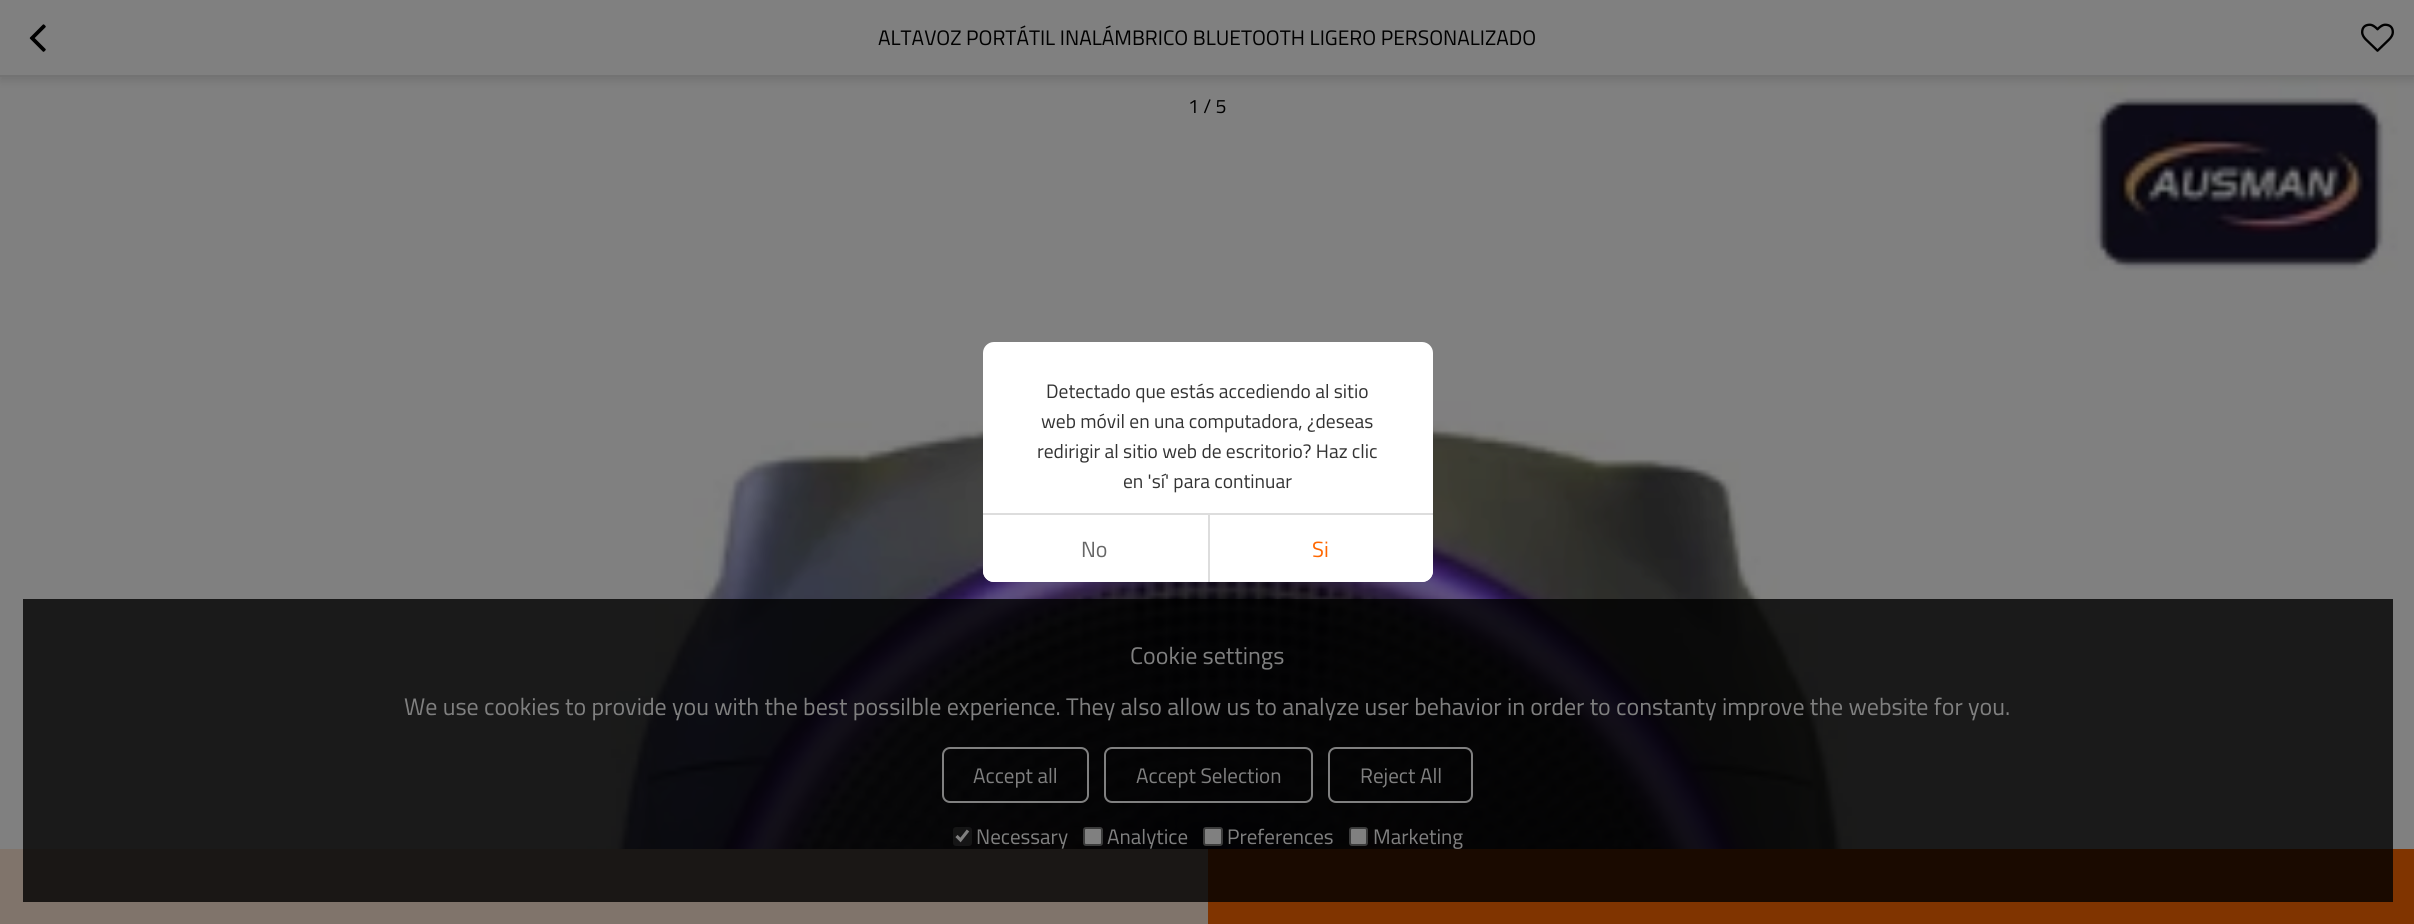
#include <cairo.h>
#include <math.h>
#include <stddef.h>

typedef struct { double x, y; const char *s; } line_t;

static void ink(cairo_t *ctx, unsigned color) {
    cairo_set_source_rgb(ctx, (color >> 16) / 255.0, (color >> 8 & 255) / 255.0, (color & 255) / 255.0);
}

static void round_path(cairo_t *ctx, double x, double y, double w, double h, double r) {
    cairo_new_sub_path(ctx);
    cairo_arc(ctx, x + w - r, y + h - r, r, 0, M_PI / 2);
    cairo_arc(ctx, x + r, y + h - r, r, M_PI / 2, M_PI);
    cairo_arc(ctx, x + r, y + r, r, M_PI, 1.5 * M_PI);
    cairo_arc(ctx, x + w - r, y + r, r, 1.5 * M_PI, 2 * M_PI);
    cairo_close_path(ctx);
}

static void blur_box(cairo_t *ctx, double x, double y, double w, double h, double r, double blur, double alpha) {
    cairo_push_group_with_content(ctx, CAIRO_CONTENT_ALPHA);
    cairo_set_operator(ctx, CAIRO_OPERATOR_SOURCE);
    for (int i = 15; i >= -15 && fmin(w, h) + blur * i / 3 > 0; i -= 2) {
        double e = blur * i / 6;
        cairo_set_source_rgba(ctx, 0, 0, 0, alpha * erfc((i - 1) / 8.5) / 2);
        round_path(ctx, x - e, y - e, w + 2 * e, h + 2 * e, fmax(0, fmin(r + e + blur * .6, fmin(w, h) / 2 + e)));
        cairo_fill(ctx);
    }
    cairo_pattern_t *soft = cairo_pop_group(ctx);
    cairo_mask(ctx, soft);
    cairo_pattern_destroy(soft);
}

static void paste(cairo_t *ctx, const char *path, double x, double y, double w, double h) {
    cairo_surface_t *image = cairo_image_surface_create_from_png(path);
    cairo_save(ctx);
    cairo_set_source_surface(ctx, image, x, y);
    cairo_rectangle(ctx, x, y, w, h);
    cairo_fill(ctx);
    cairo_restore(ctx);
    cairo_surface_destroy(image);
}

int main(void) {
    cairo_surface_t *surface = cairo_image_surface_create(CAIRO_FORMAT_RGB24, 2414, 924);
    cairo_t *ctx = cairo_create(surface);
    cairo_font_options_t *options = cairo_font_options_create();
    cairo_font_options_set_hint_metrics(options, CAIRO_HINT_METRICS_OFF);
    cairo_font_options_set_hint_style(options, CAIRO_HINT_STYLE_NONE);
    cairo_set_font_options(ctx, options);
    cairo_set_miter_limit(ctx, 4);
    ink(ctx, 0xFFFFFF);
    cairo_paint(ctx);
    paste(ctx, "media/3.png", 0, 77, 2414, 772);
    ink(ctx, 0x000000);
    blur_box(ctx, 0, 5, 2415, 76, 0, 4, 0.1);
    ink(ctx, 0x808080);
    cairo_rectangle(ctx, 0, 0, 2414, 75);
    cairo_fill(ctx);
    ink(ctx, 0x737373);
    cairo_rectangle(ctx, 0, 75, 2414, 2);
    cairo_fill(ctx);
    paste(ctx, "media/1.png", 29, 24, 17, 28);
    cairo_select_font_face(ctx, "Titillium Web", CAIRO_FONT_SLANT_NORMAL, CAIRO_FONT_WEIGHT_NORMAL);
    cairo_set_font_size(ctx, 21);
    ink(ctx, 0x000000);
    cairo_move_to(ctx, 878, 45);
    cairo_show_text(ctx, "ALTAVOZ PORTÁTIL INALÁMBRICO BLUETOOTH LIGERO PERSONALIZADO");
    paste(ctx, "media/2.png", 2361, 23, 33, 29);
    cairo_set_font_size(ctx, 19.5);
    cairo_move_to(ctx, 1188, 113);
    cairo_show_text(ctx, "1 / 5");
    ink(ctx, 0x80746B);
    cairo_rectangle(ctx, 0, 849, 1208, 75);
    cairo_fill(ctx);
    ink(ctx, 0x803400);
    cairo_rectangle(ctx, 1208, 849, 1206, 75);
    cairo_fill(ctx);
    ink(ctx, 0xFFFFFF);
    round_path(ctx, 983, 342, 450, 240, 11);
    cairo_fill(ctx);
    ink(ctx, 0x333333);
    {
        static const line_t items[] = {
            {1046, 398, "Detectado que estás accediendo al sitio"},
            {1041, 428, "web móvil en una computadora, ¿deseas"},
            {1037, 458, "redirigir al sitio web de escritorio? Haz clic"},
            {1123, 488, "en 'sí' para continuar"},
        };
        for (size_t i = 0; i < sizeof items / sizeof *items; i++) {
            cairo_move_to(ctx, items[i].x, items[i].y);
            cairo_show_text(ctx, items[i].s);
        }
    }
    ink(ctx, 0xDDDDDD);
    cairo_rectangle(ctx, 983, 513, 450, 2);
    cairo_fill(ctx);
    ink(ctx, 0xFFFFFF);
    cairo_new_path(ctx);
    cairo_move_to(ctx, 983, 515);
    cairo_line_to(ctx, 1208, 515);
    cairo_line_to(ctx, 1208, 582);
    cairo_line_to(ctx, 994, 582);
    cairo_curve_to(ctx, 988, 582, 983, 577, 983, 571);
    cairo_close_path(ctx);
    cairo_fill(ctx);
    cairo_set_font_size(ctx, 22);
    ink(ctx, 0x666666);
    cairo_move_to(ctx, 1081, 557);
    cairo_show_text(ctx, "No");
    ink(ctx, 0xFFFFFF);
    cairo_new_path(ctx);
    cairo_move_to(ctx, 1208, 515);
    cairo_line_to(ctx, 1433, 515);
    cairo_line_to(ctx, 1433, 571);
    cairo_curve_to(ctx, 1433, 577, 1428, 582, 1422, 582);
    cairo_line_to(ctx, 1208, 582);
    cairo_close_path(ctx);
    cairo_fill(ctx);
    ink(ctx, 0xDDDDDD);
    cairo_rectangle(ctx, 1208, 515, 2, 67);
    cairo_fill(ctx);
    ink(ctx, 0xFF6700);
    cairo_move_to(ctx, 1312, 557);
    cairo_show_text(ctx, "Si");
    cairo_set_source_rgba(ctx, 0, 0, 0, 0.8);
    cairo_rectangle(ctx, 23, 599, 2370, 303);
    cairo_fill(ctx);
    cairo_set_font_size(ctx, 24);
    ink(ctx, 0x808080);
    cairo_move_to(ctx, 1130, 664);
    cairo_show_text(ctx, "Cookie settings");
    cairo_move_to(ctx, 404, 715);
    cairo_show_text(ctx, "We use cookies to provide you with the best possilble experience. They also allow us to analyze user behavior in order to constanty improve the website for you.");
    round_path(ctx, 943, 748, 145, 54, 7);
    cairo_stroke(ctx);
    cairo_set_font_size(ctx, 21);
    cairo_move_to(ctx, 973, 783);
    cairo_show_text(ctx, "Accept all");
    round_path(ctx, 1105, 748, 207, 54, 7);
    cairo_stroke(ctx);
    cairo_move_to(ctx, 1136, 783);
    cairo_show_text(ctx, "Accept Selection");
    round_path(ctx, 1329, 748, 143, 54, 7);
    cairo_stroke(ctx);
    cairo_move_to(ctx, 1360, 783);
    cairo_show_text(ctx, "Reject All");
    cairo_set_source_rgba(ctx, 0.231, 0.231, 0.231, 0.3);
    round_path(ctx, 953, 827, 19, 19, 3);
    cairo_fill(ctx);
    cairo_new_path(ctx);
    cairo_move_to(ctx, 956.5, 836);
    cairo_line_to(ctx, 960.5, 840);
    cairo_line_to(ctx, 968, 830.5);
    ink(ctx, 0x808080);
    cairo_set_line_width(ctx, 3.1);
    cairo_stroke(ctx);
    cairo_move_to(ctx, 976, 844);
    cairo_show_text(ctx, "Necessary");
    round_path(ctx, 1084, 828, 18, 17, 2);
    cairo_fill_preserve(ctx);
    ink(ctx, 0x3B3B3B);
    cairo_set_line_width(ctx, 2);
    cairo_stroke(ctx);
    ink(ctx, 0x808080);
    cairo_move_to(ctx, 1107, 844);
    cairo_show_text(ctx, "Analytice");
    round_path(ctx, 1204, 828, 18, 17, 2);
    cairo_fill_preserve(ctx);
    ink(ctx, 0x3B3B3B);
    cairo_stroke(ctx);
    ink(ctx, 0x808080);
    cairo_move_to(ctx, 1227, 844);
    cairo_show_text(ctx, "Preferences");
    round_path(ctx, 1350, 828, 17, 17, 2);
    cairo_fill_preserve(ctx);
    ink(ctx, 0x3B3B3B);
    cairo_stroke(ctx);
    ink(ctx, 0x808080);
    cairo_move_to(ctx, 1373, 844);
    cairo_show_text(ctx, "Marketing");
    cairo_surface_write_to_png(surface, "image.png");
    cairo_font_options_destroy(options);
    cairo_destroy(ctx);
    cairo_surface_destroy(surface);
    return 0;
}
